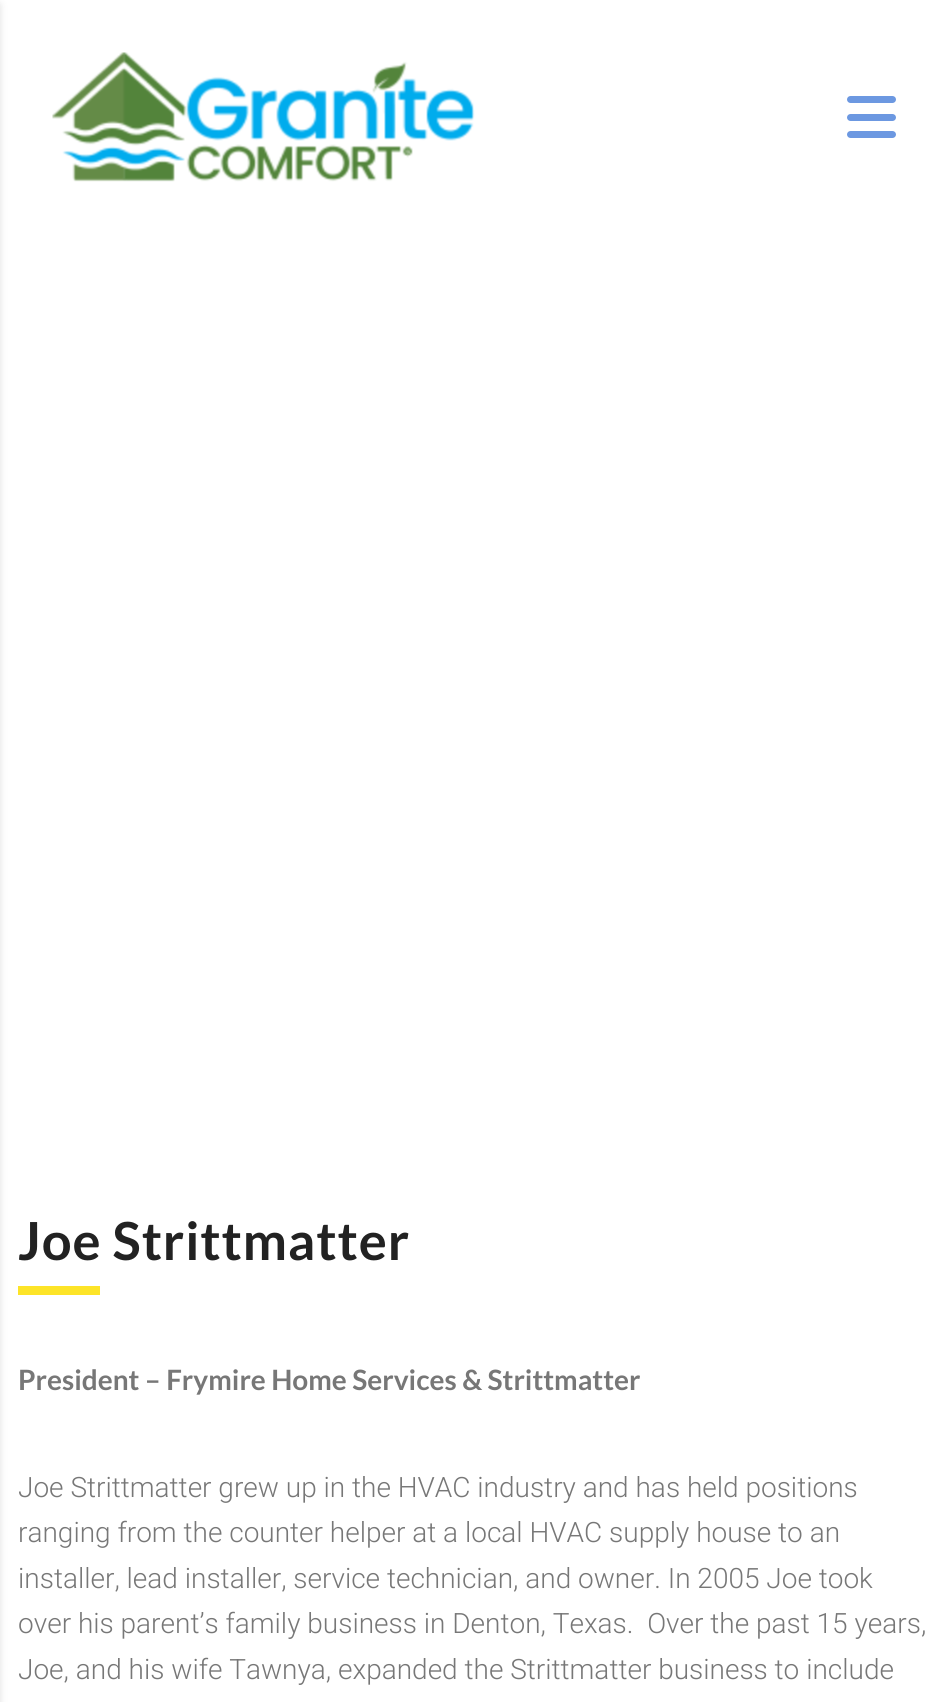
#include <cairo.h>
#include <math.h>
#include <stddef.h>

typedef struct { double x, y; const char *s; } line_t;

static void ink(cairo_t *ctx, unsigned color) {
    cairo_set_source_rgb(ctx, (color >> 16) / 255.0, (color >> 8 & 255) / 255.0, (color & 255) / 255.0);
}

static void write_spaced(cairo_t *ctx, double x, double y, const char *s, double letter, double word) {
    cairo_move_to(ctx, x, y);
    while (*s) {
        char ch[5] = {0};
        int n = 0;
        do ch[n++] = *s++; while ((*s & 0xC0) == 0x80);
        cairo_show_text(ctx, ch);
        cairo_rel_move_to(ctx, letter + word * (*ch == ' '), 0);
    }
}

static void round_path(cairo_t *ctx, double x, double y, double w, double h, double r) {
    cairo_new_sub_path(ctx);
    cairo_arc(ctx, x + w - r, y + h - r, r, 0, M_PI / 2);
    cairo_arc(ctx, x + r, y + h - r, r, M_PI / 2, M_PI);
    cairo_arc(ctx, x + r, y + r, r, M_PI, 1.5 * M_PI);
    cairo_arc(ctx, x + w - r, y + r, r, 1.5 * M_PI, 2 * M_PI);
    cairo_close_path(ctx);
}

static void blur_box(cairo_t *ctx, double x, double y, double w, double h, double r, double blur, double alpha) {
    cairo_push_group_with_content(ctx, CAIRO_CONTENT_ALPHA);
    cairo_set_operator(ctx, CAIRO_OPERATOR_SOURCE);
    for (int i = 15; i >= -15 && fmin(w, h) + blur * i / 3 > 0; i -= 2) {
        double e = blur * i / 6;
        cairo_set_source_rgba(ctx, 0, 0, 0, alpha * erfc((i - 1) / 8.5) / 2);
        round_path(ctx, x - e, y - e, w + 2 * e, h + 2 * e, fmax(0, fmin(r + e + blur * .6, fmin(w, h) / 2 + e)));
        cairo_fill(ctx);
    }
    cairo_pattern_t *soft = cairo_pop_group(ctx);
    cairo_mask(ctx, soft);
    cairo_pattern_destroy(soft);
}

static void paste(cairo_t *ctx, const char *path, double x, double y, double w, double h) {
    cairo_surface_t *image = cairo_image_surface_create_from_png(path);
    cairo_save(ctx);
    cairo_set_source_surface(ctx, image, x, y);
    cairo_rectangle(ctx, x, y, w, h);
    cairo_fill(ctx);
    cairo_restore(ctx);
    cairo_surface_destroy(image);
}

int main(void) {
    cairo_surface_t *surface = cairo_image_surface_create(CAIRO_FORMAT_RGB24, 948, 1702);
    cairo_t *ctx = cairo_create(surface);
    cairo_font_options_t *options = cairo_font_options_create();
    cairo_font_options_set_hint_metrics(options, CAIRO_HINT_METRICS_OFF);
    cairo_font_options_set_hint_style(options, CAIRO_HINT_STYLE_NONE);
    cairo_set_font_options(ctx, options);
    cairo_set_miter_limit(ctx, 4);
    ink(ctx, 0xFFFFFF);
    cairo_paint(ctx);
    ink(ctx, 0x000000);
    blur_box(ctx, -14, 5, 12, 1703, 0, 4.5, 0.2);
    paste(ctx, "media/1.png", 52, 52, 423, 130);
    ink(ctx, 0x6C98E1);
    round_path(ctx, 847, 96, 49, 7, 3.5);
    cairo_fill(ctx);
    round_path(ctx, 847, 114, 49, 7, 3.5);
    cairo_fill(ctx);
    round_path(ctx, 847, 131, 49, 7, 3.5);
    cairo_fill(ctx);
    cairo_select_font_face(ctx, "Lato", CAIRO_FONT_SLANT_NORMAL, CAIRO_FONT_WEIGHT_BOLD);
    cairo_set_font_size(ctx, 52.5);
    ink(ctx, 0x222222);
    write_spaced(ctx, 18, 1260, "Joe Strittmatter", 0.9, 0);
    ink(ctx, 0xFDE428);
    cairo_rectangle(ctx, 18, 1286, 82, 9);
    cairo_fill(ctx);
    cairo_set_font_size(ctx, 28);
    ink(ctx, 0x777777);
    cairo_move_to(ctx, 18, 1390);
    cairo_show_text(ctx, "President – Frymire Home Services & Strittmatter");
    cairo_select_font_face(ctx, "Roboto Light", CAIRO_FONT_SLANT_NORMAL, CAIRO_FONT_WEIGHT_NORMAL);
    {
        static const line_t items[] = {
            {18, 1497, "Joe Strittmatter grew up in the HVAC industry and has held positions"},
            {18, 1542, "ranging from the counter helper at a local HVAC supply house to an"},
            {18, 1588, "installer, lead installer, service technician, and owner. In 2005 Joe took"},
            {18, 1633, "over his parent’s family business in Denton, Texas.  Over the past 15 years,"},
            {18, 1679, "Joe, and his wife Tawnya, expanded the Strittmatter business to include"},
        };
        for (size_t i = 0; i < sizeof items / sizeof *items; i++) {
            cairo_move_to(ctx, items[i].x, items[i].y);
            cairo_show_text(ctx, items[i].s);
        }
    }
    cairo_surface_write_to_png(surface, "image.png");
    cairo_font_options_destroy(options);
    cairo_destroy(ctx);
    cairo_surface_destroy(surface);
    return 0;
}
